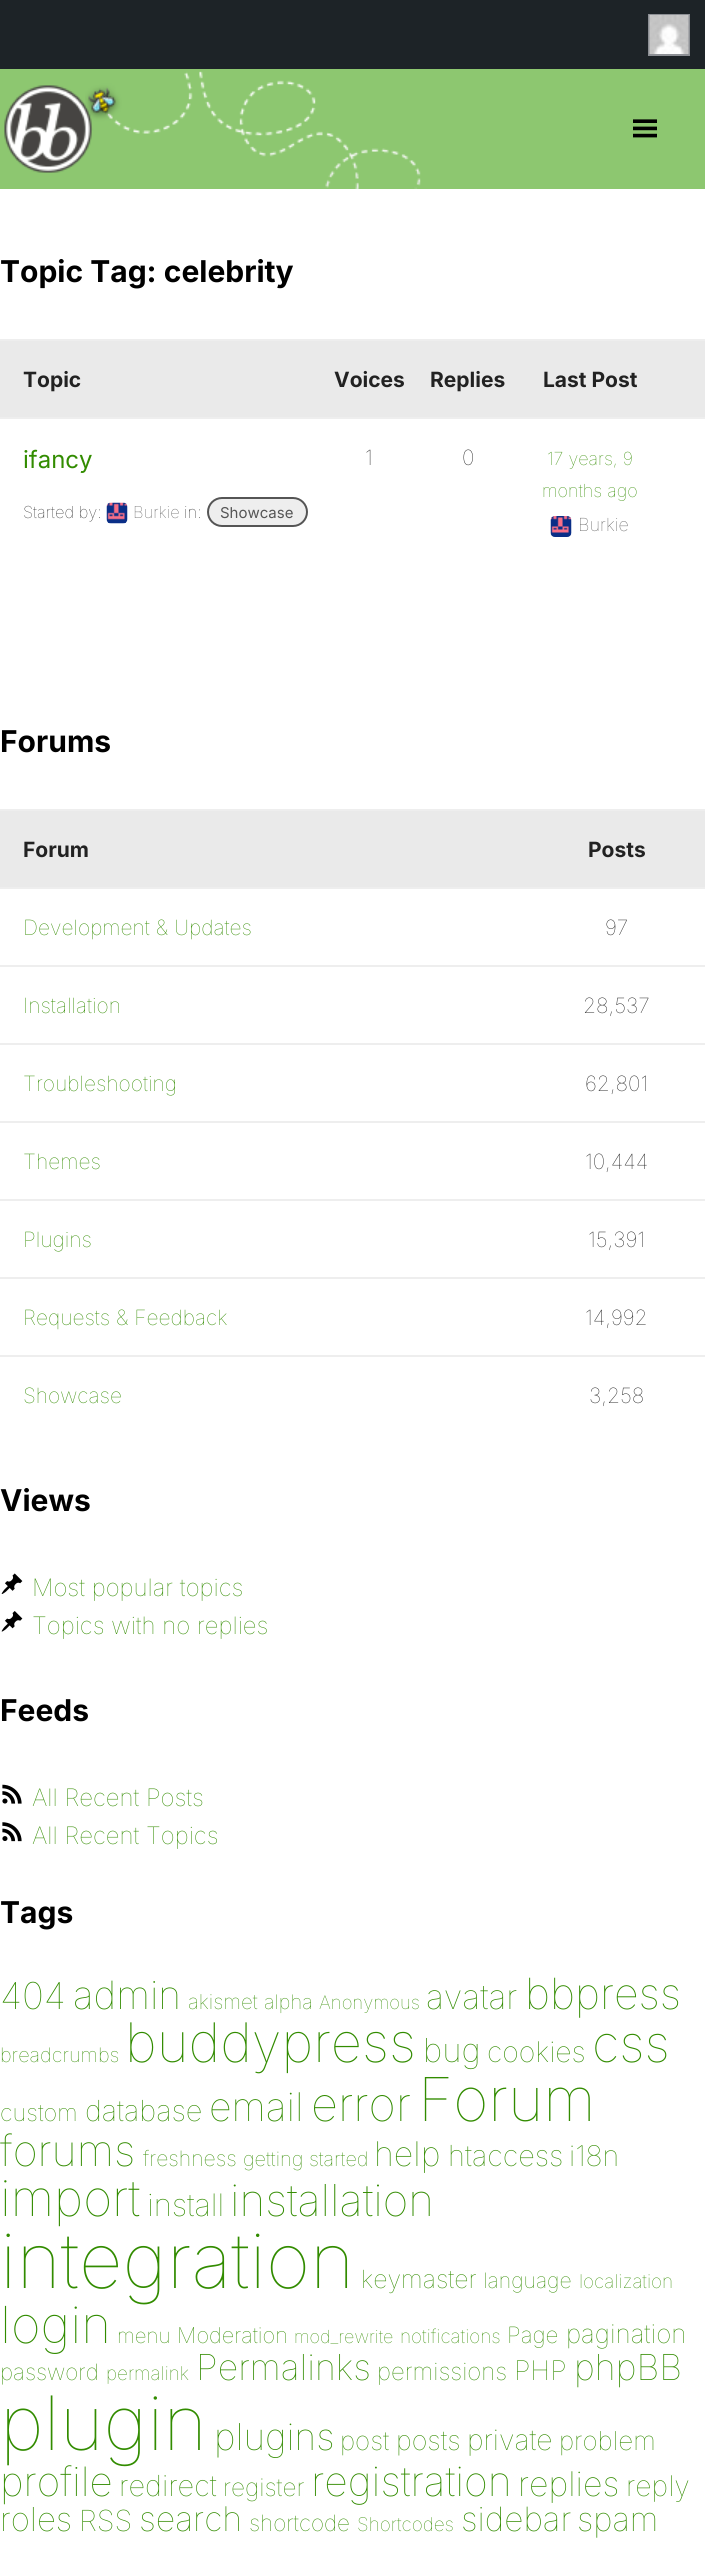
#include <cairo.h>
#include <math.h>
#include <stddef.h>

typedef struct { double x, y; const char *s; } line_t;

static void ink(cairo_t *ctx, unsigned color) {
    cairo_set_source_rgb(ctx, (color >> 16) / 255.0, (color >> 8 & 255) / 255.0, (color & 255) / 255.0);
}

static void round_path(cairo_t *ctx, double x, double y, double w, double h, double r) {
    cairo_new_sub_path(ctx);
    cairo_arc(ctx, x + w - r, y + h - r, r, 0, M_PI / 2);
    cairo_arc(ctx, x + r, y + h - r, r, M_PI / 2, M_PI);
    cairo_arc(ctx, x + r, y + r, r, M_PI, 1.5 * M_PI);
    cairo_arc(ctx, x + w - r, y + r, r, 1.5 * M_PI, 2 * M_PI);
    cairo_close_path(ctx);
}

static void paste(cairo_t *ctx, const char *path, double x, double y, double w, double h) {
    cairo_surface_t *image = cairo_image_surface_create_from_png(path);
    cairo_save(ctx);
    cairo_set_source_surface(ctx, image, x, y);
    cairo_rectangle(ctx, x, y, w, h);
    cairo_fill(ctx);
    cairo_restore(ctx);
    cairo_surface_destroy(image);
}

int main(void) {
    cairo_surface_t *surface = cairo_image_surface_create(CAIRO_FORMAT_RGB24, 705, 2564);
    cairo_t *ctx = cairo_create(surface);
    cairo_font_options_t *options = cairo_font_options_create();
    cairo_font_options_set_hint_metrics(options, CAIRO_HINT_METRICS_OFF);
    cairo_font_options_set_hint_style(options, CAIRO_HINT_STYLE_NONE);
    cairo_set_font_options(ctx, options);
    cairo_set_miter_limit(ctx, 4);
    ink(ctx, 0xFFFFFF);
    cairo_paint(ctx);
    ink(ctx, 0x1D2327);
    cairo_rectangle(ctx, 0, 0, 705, 69);
    cairo_fill(ctx);
    cairo_rectangle(ctx, 649, 15, 40, 40);
    ink(ctx, 0x8C8F94);
    cairo_stroke(ctx);
    paste(ctx, "media/1.png", 649, 15, 40, 39);
    ink(ctx, 0x8DC770);
    cairo_rectangle(ctx, 0, 69, 705, 120);
    cairo_fill(ctx);
    paste(ctx, "media/2.png", 85, 71, 336, 118);
    paste(ctx, "media/3.png", 4, 85, 94, 88);
    paste(ctx, "media/4.png", 633, 119, 24, 19);
    cairo_select_font_face(ctx, "Inter", CAIRO_FONT_SLANT_NORMAL, CAIRO_FONT_WEIGHT_BOLD);
    cairo_set_font_size(ctx, 30);
    ink(ctx, 0x000000);
    cairo_move_to(ctx, 0, 282);
    cairo_show_text(ctx, "Topic Tag: celebrity");
    ink(ctx, 0xEAEAEA);
    cairo_rectangle(ctx, 0, 341, 705, 76);
    cairo_fill(ctx);
    ink(ctx, 0xEEEEEE);
    cairo_rectangle(ctx, 0, 339, 705, 2);
    cairo_fill(ctx);
    cairo_set_font_size(ctx, 21);
    ink(ctx, 0x222222);
    {
        static const line_t items[] = {
            {23, 387, "Topic"},
            {334, 387, "Voices"},
            {430, 387, "Replies"},
            {543, 387, "Last Post"},
        };
        for (size_t i = 0; i < sizeof items / sizeof *items; i++) {
            cairo_move_to(ctx, items[i].x, items[i].y);
            cairo_show_text(ctx, items[i].s);
        }
    }
    ink(ctx, 0xEEEEEE);
    cairo_rectangle(ctx, 0, 417, 705, 2);
    cairo_fill(ctx);
    cairo_select_font_face(ctx, "Inter", CAIRO_FONT_SLANT_NORMAL, CAIRO_FONT_WEIGHT_NORMAL);
    cairo_set_font_size(ctx, 24);
    ink(ctx, 0x328C00);
    cairo_move_to(ctx, 23, 468);
    cairo_show_text(ctx, "ifancy");
    cairo_select_font_face(ctx, "Inter Thin", CAIRO_FONT_SLANT_NORMAL, CAIRO_FONT_WEIGHT_NORMAL);
    cairo_set_font_size(ctx, 16.5);
    ink(ctx, 0x222222);
    cairo_move_to(ctx, 23, 518);
    cairo_show_text(ctx, "Started by:");
    paste(ctx, "media/5.png", 106, 502, 22, 22);
    ink(ctx, 0x555555);
    cairo_move_to(ctx, 133, 518);
    cairo_show_text(ctx, "Burkie");
    ink(ctx, 0x222222);
    cairo_move_to(ctx, 184, 518);
    cairo_show_text(ctx, "in:");
    ink(ctx, 0xEEEEEE);
    round_path(ctx, 208, 498, 99, 28, 14);
    cairo_fill_preserve(ctx);
    ink(ctx, 0x555555);
    cairo_stroke(ctx);
    cairo_select_font_face(ctx, "Inter", CAIRO_FONT_SLANT_NORMAL, CAIRO_FONT_WEIGHT_NORMAL);
    cairo_set_font_size(ctx, 15);
    cairo_move_to(ctx, 220, 518);
    cairo_show_text(ctx, "Showcase");
    cairo_select_font_face(ctx, "Inter Thin", CAIRO_FONT_SLANT_NORMAL, CAIRO_FONT_WEIGHT_NORMAL);
    cairo_set_font_size(ctx, 21);
    ink(ctx, 0x222222);
    cairo_move_to(ctx, 365, 465);
    cairo_show_text(ctx, "1");
    cairo_move_to(ctx, 462, 465);
    cairo_show_text(ctx, "0");
    cairo_set_font_size(ctx, 18);
    ink(ctx, 0x328C00);
    cairo_move_to(ctx, 547, 465);
    cairo_show_text(ctx, "17 years, 9");
    cairo_move_to(ctx, 542, 497);
    cairo_show_text(ctx, "months ago");
    paste(ctx, "media/6.png", 550, 516, 22, 21);
    ink(ctx, 0x555555);
    cairo_move_to(ctx, 578, 531);
    cairo_show_text(ctx, "Burkie");
    cairo_select_font_face(ctx, "Inter", CAIRO_FONT_SLANT_NORMAL, CAIRO_FONT_WEIGHT_BOLD);
    cairo_set_font_size(ctx, 30);
    ink(ctx, 0x000000);
    cairo_move_to(ctx, 0, 752);
    cairo_show_text(ctx, "Forums");
    ink(ctx, 0xEAEAEA);
    cairo_rectangle(ctx, 0, 811, 705, 76);
    cairo_fill(ctx);
    ink(ctx, 0xEEEEEE);
    cairo_rectangle(ctx, 0, 809, 705, 2);
    cairo_fill(ctx);
    cairo_set_font_size(ctx, 21);
    ink(ctx, 0x222222);
    cairo_move_to(ctx, 23, 857);
    cairo_show_text(ctx, "Forum");
    cairo_move_to(ctx, 588, 857);
    cairo_show_text(ctx, "Posts");
    ink(ctx, 0xEEEEEE);
    cairo_rectangle(ctx, 0, 887, 705, 2);
    cairo_fill(ctx);
    cairo_select_font_face(ctx, "Inter Thin", CAIRO_FONT_SLANT_NORMAL, CAIRO_FONT_WEIGHT_NORMAL);
    ink(ctx, 0x328C00);
    cairo_move_to(ctx, 23, 935);
    cairo_show_text(ctx, "Development & Updates");
    ink(ctx, 0x222222);
    cairo_move_to(ctx, 605, 935);
    cairo_show_text(ctx, "97");
    ink(ctx, 0xEEEEEE);
    cairo_rectangle(ctx, 0, 965, 705, 2);
    cairo_fill(ctx);
    ink(ctx, 0x328C00);
    cairo_move_to(ctx, 23, 1013);
    cairo_show_text(ctx, "Installation");
    ink(ctx, 0x222222);
    cairo_move_to(ctx, 583, 1013);
    cairo_show_text(ctx, "28,537");
    ink(ctx, 0xEEEEEE);
    cairo_rectangle(ctx, 0, 1043, 705, 2);
    cairo_fill(ctx);
    ink(ctx, 0x328C00);
    cairo_move_to(ctx, 23, 1091);
    cairo_show_text(ctx, "Troubleshooting");
    ink(ctx, 0x222222);
    cairo_move_to(ctx, 585, 1091);
    cairo_show_text(ctx, "62,801");
    ink(ctx, 0xEEEEEE);
    cairo_rectangle(ctx, 0, 1121, 705, 2);
    cairo_fill(ctx);
    ink(ctx, 0x328C00);
    cairo_move_to(ctx, 23, 1169);
    cairo_show_text(ctx, "Themes");
    ink(ctx, 0x222222);
    cairo_move_to(ctx, 585, 1169);
    cairo_show_text(ctx, "10,444");
    ink(ctx, 0xEEEEEE);
    cairo_rectangle(ctx, 0, 1199, 705, 2);
    cairo_fill(ctx);
    ink(ctx, 0x328C00);
    cairo_move_to(ctx, 23, 1247);
    cairo_show_text(ctx, "Plugins");
    ink(ctx, 0x222222);
    cairo_move_to(ctx, 588, 1247);
    cairo_show_text(ctx, "15,391");
    ink(ctx, 0xEEEEEE);
    cairo_rectangle(ctx, 0, 1277, 705, 2);
    cairo_fill(ctx);
    ink(ctx, 0x328C00);
    cairo_move_to(ctx, 23, 1325);
    cairo_show_text(ctx, "Requests & Feedback");
    ink(ctx, 0x222222);
    cairo_move_to(ctx, 585, 1325);
    cairo_show_text(ctx, "14,992");
    ink(ctx, 0xEEEEEE);
    cairo_rectangle(ctx, 0, 1355, 705, 2);
    cairo_fill(ctx);
    ink(ctx, 0x328C00);
    cairo_move_to(ctx, 23, 1403);
    cairo_show_text(ctx, "Showcase");
    ink(ctx, 0x222222);
    cairo_move_to(ctx, 589, 1403);
    cairo_show_text(ctx, "3,258");
    cairo_select_font_face(ctx, "Inter", CAIRO_FONT_SLANT_NORMAL, CAIRO_FONT_WEIGHT_BOLD);
    cairo_set_font_size(ctx, 30);
    ink(ctx, 0x000000);
    cairo_move_to(ctx, 0, 1511);
    cairo_show_text(ctx, "Views");
    paste(ctx, "media/7.png", 1, 1573, 22, 21);
    cairo_select_font_face(ctx, "Inter Thin", CAIRO_FONT_SLANT_NORMAL, CAIRO_FONT_WEIGHT_NORMAL);
    cairo_set_font_size(ctx, 24);
    ink(ctx, 0x328C00);
    cairo_move_to(ctx, 32, 1596);
    cairo_show_text(ctx, "Most popular topics");
    paste(ctx, "media/8.png", 1, 1611, 22, 21);
    cairo_move_to(ctx, 32, 1634);
    cairo_show_text(ctx, "Topics with no replies");
    cairo_select_font_face(ctx, "Inter", CAIRO_FONT_SLANT_NORMAL, CAIRO_FONT_WEIGHT_BOLD);
    cairo_set_font_size(ctx, 30);
    ink(ctx, 0x000000);
    cairo_move_to(ctx, 0, 1721);
    cairo_show_text(ctx, "Feeds");
    paste(ctx, "media/9.png", 2, 1784, 20, 20);
    cairo_select_font_face(ctx, "Inter Thin", CAIRO_FONT_SLANT_NORMAL, CAIRO_FONT_WEIGHT_NORMAL);
    cairo_set_font_size(ctx, 24);
    ink(ctx, 0x328C00);
    cairo_move_to(ctx, 32, 1806);
    cairo_show_text(ctx, "All Recent Posts");
    paste(ctx, "media/10.png", 2, 1822, 20, 20);
    cairo_move_to(ctx, 32, 1844);
    cairo_show_text(ctx, "All Recent Topics");
    cairo_select_font_face(ctx, "Inter", CAIRO_FONT_SLANT_NORMAL, CAIRO_FONT_WEIGHT_BOLD);
    cairo_set_font_size(ctx, 30);
    ink(ctx, 0x000000);
    cairo_move_to(ctx, 0, 1923);
    cairo_show_text(ctx, "Tags");
    cairo_select_font_face(ctx, "Inter Thin", CAIRO_FONT_SLANT_NORMAL, CAIRO_FONT_WEIGHT_NORMAL);
    cairo_set_font_size(ctx, 37);
    ink(ctx, 0x328C00);
    cairo_move_to(ctx, 0, 2009);
    cairo_show_text(ctx, "404");
    cairo_set_font_size(ctx, 39);
    cairo_move_to(ctx, 73, 2009);
    cairo_show_text(ctx, "admin");
    cairo_set_font_size(ctx, 20.5);
    cairo_move_to(ctx, 188, 2009);
    cairo_show_text(ctx, "akismet");
    cairo_set_font_size(ctx, 20);
    cairo_move_to(ctx, 264, 2009);
    cairo_show_text(ctx, "alpha");
    cairo_set_font_size(ctx, 18.5);
    cairo_move_to(ctx, 319, 2009);
    cairo_show_text(ctx, "Anonymous");
    cairo_set_font_size(ctx, 34);
    cairo_move_to(ctx, 426, 2009);
    cairo_show_text(ctx, "avatar");
    cairo_set_font_size(ctx, 43);
    cairo_move_to(ctx, 525, 2009);
    cairo_show_text(ctx, "bbpress");
    cairo_set_font_size(ctx, 20);
    cairo_move_to(ctx, 0, 2062);
    cairo_show_text(ctx, "breadcrumbs");
    cairo_set_font_size(ctx, 54.5);
    cairo_move_to(ctx, 125, 2062);
    cairo_show_text(ctx, "buddypress");
    cairo_set_font_size(ctx, 33);
    cairo_move_to(ctx, 423, 2062);
    cairo_show_text(ctx, "bug");
    cairo_set_font_size(ctx, 28.5);
    cairo_move_to(ctx, 487, 2062);
    cairo_show_text(ctx, "cookies");
    cairo_set_font_size(ctx, 51);
    cairo_move_to(ctx, 592, 2062);
    cairo_show_text(ctx, "css");
    cairo_set_font_size(ctx, 23.5);
    cairo_move_to(ctx, 0, 2121);
    cairo_show_text(ctx, "custom");
    cairo_set_font_size(ctx, 29);
    cairo_move_to(ctx, 85, 2121);
    cairo_show_text(ctx, "database");
    cairo_set_font_size(ctx, 39.5);
    cairo_move_to(ctx, 209, 2121);
    cairo_show_text(ctx, "email");
    cairo_set_font_size(ctx, 47);
    cairo_move_to(ctx, 311, 2121);
    cairo_show_text(ctx, "error");
    cairo_set_font_size(ctx, 60.5);
    cairo_move_to(ctx, 418, 2121);
    cairo_show_text(ctx, "Forum");
    cairo_set_font_size(ctx, 43);
    cairo_move_to(ctx, 0, 2166);
    cairo_show_text(ctx, "forums");
    cairo_set_font_size(ctx, 21.25);
    cairo_move_to(ctx, 143, 2166);
    cairo_show_text(ctx, "freshness");
    cairo_set_font_size(ctx, 20);
    cairo_move_to(ctx, 243, 2166);
    cairo_show_text(ctx, "getting started");
    cairo_set_font_size(ctx, 34);
    cairo_move_to(ctx, 374, 2166);
    cairo_show_text(ctx, "help");
    cairo_set_font_size(ctx, 29);
    cairo_move_to(ctx, 448, 2166);
    cairo_show_text(ctx, "htaccess");
    cairo_set_font_size(ctx, 28.5);
    cairo_move_to(ctx, 569, 2166);
    cairo_show_text(ctx, "i18n");
    cairo_set_font_size(ctx, 50);
    cairo_move_to(ctx, 0, 2216);
    cairo_show_text(ctx, "import");
    cairo_set_font_size(ctx, 31);
    cairo_move_to(ctx, 147, 2216);
    cairo_show_text(ctx, "install");
    cairo_set_font_size(ctx, 44);
    cairo_move_to(ctx, 230, 2216);
    cairo_show_text(ctx, "installation");
    cairo_set_font_size(ctx, 76);
    cairo_move_to(ctx, 0, 2288);
    cairo_show_text(ctx, "integration");
    cairo_set_font_size(ctx, 25);
    cairo_move_to(ctx, 361, 2288);
    cairo_show_text(ctx, "keymaster");
    cairo_set_font_size(ctx, 21.25);
    cairo_move_to(ctx, 483, 2288);
    cairo_show_text(ctx, "language");
    cairo_set_font_size(ctx, 19);
    cairo_move_to(ctx, 579, 2288);
    cairo_show_text(ctx, "localization");
    cairo_set_font_size(ctx, 51);
    cairo_move_to(ctx, 0, 2343);
    cairo_show_text(ctx, "login");
    cairo_set_font_size(ctx, 20.5);
    cairo_move_to(ctx, 117, 2343);
    cairo_show_text(ctx, "menu");
    cairo_set_font_size(ctx, 21.75);
    cairo_move_to(ctx, 177, 2343);
    cairo_show_text(ctx, "Moderation");
    cairo_set_font_size(ctx, 18);
    cairo_move_to(ctx, 294, 2343);
    cairo_show_text(ctx, "mod_rewrite");
    cairo_set_font_size(ctx, 19);
    cairo_move_to(ctx, 400, 2343);
    cairo_show_text(ctx, "notifications");
    cairo_set_font_size(ctx, 22.5);
    cairo_move_to(ctx, 507, 2343);
    cairo_show_text(ctx, "Page");
    cairo_set_font_size(ctx, 26);
    cairo_move_to(ctx, 566, 2343);
    cairo_show_text(ctx, "pagination");
    cairo_set_font_size(ctx, 22.5);
    cairo_move_to(ctx, 0, 2380);
    cairo_show_text(ctx, "password");
    cairo_set_font_size(ctx, 19);
    cairo_move_to(ctx, 106, 2380);
    cairo_show_text(ctx, "permalink");
    cairo_set_font_size(ctx, 35.75);
    cairo_move_to(ctx, 196, 2380);
    cairo_show_text(ctx, "Permalinks");
    cairo_set_font_size(ctx, 24);
    cairo_move_to(ctx, 377, 2380);
    cairo_show_text(ctx, "permissions");
    cairo_set_font_size(ctx, 27);
    cairo_move_to(ctx, 514, 2380);
    cairo_show_text(ctx, "PHP");
    cairo_set_font_size(ctx, 35.75);
    cairo_move_to(ctx, 574, 2380);
    cairo_show_text(ctx, "phpBB");
    cairo_set_font_size(ctx, 75);
    cairo_move_to(ctx, 0, 2450);
    cairo_show_text(ctx, "plugin");
    cairo_set_font_size(ctx, 37);
    cairo_move_to(ctx, 214, 2450);
    cairo_show_text(ctx, "plugins");
    cairo_set_font_size(ctx, 26);
    cairo_move_to(ctx, 340, 2450);
    cairo_show_text(ctx, "post");
    cairo_set_font_size(ctx, 27);
    cairo_move_to(ctx, 396, 2450);
    cairo_show_text(ctx, "posts");
    cairo_set_font_size(ctx, 28.5);
    cairo_move_to(ctx, 467, 2450);
    cairo_show_text(ctx, "private");
    cairo_set_font_size(ctx, 26);
    cairo_move_to(ctx, 559, 2450);
    cairo_show_text(ctx, "problem");
    cairo_set_font_size(ctx, 40.5);
    cairo_move_to(ctx, 0, 2496);
    cairo_show_text(ctx, "profile");
    cairo_set_font_size(ctx, 29);
    cairo_move_to(ctx, 119, 2496);
    cairo_show_text(ctx, "redirect");
    cairo_set_font_size(ctx, 24.5);
    cairo_move_to(ctx, 223, 2496);
    cairo_show_text(ctx, "register");
    cairo_set_font_size(ctx, 41);
    cairo_move_to(ctx, 311, 2496);
    cairo_show_text(ctx, "registration");
    cairo_set_font_size(ctx, 34);
    cairo_move_to(ctx, 518, 2496);
    cairo_show_text(ctx, "replies");
    cairo_set_font_size(ctx, 28.5);
    cairo_move_to(ctx, 626, 2496);
    cairo_show_text(ctx, "reply");
    cairo_set_font_size(ctx, 33);
    cairo_move_to(ctx, 0, 2531);
    cairo_show_text(ctx, "roles");
    cairo_set_font_size(ctx, 29);
    cairo_move_to(ctx, 79, 2531);
    cairo_show_text(ctx, "RSS");
    cairo_set_font_size(ctx, 34);
    cairo_move_to(ctx, 139, 2531);
    cairo_show_text(ctx, "search");
    cairo_set_font_size(ctx, 22.5);
    cairo_move_to(ctx, 249, 2531);
    cairo_show_text(ctx, "shortcode");
    cairo_set_font_size(ctx, 19);
    cairo_move_to(ctx, 357, 2531);
    cairo_show_text(ctx, "Shortcodes");
    cairo_set_font_size(ctx, 33.5);
    cairo_move_to(ctx, 461, 2531);
    cairo_show_text(ctx, "sidebar");
    cairo_set_font_size(ctx, 33);
    cairo_move_to(ctx, 577, 2531);
    cairo_show_text(ctx, "spam");
    cairo_surface_write_to_png(surface, "image.png");
    cairo_font_options_destroy(options);
    cairo_destroy(ctx);
    cairo_surface_destroy(surface);
    return 0;
}
